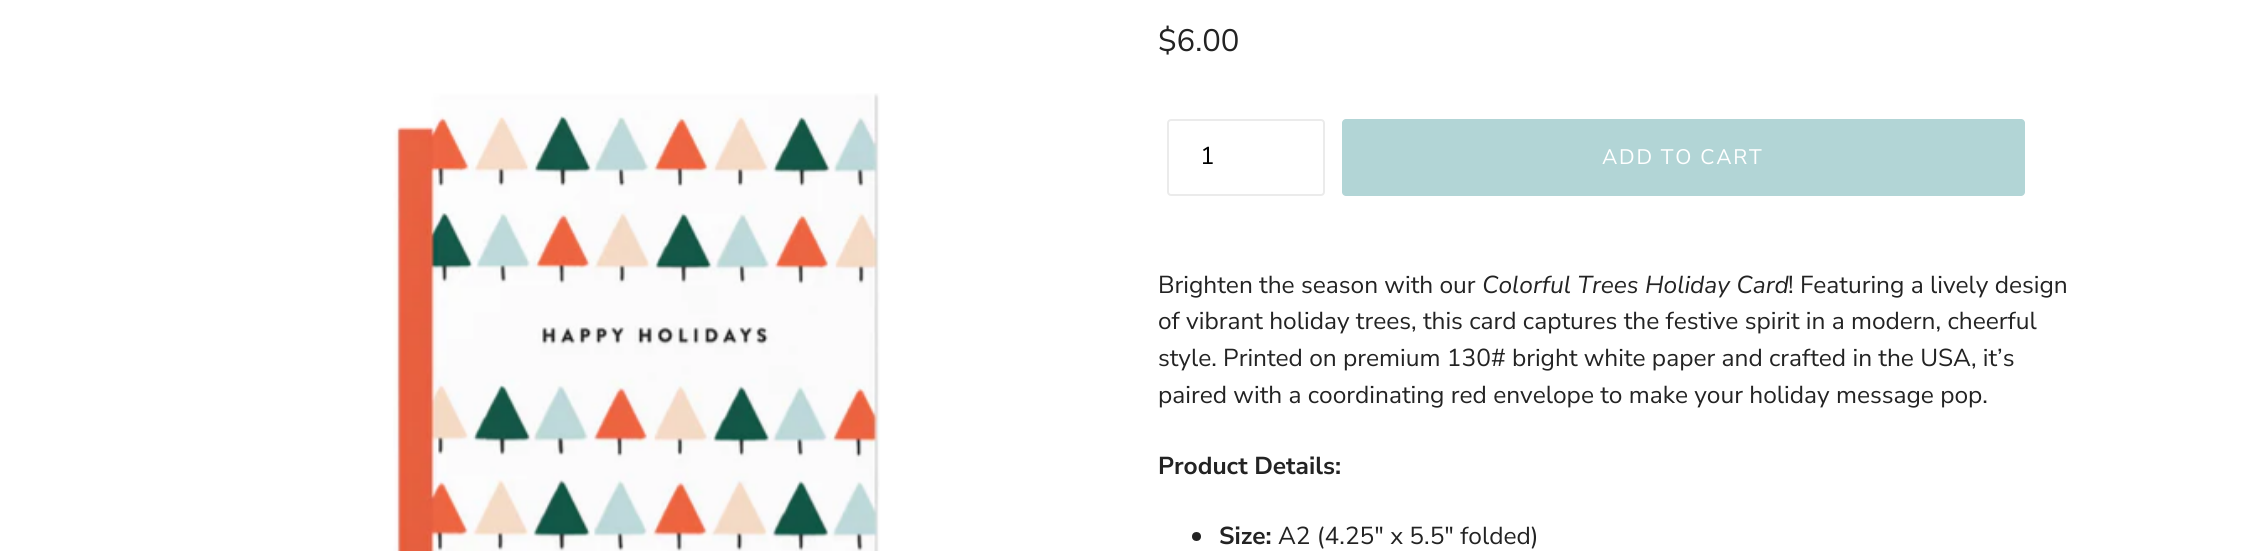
#include <cairo.h>
#include <math.h>
#include <stddef.h>

typedef struct { double x, y; const char *s; } line_t;

static void ink(cairo_t *ctx, unsigned color) {
    cairo_set_source_rgb(ctx, (color >> 16) / 255.0, (color >> 8 & 255) / 255.0, (color & 255) / 255.0);
}

static void write_spaced(cairo_t *ctx, double x, double y, const char *s, double letter, double word) {
    cairo_move_to(ctx, x, y);
    while (*s) {
        char ch[5] = {0};
        int n = 0;
        do ch[n++] = *s++; while ((*s & 0xC0) == 0x80);
        cairo_show_text(ctx, ch);
        cairo_rel_move_to(ctx, letter + word * (*ch == ' '), 0);
    }
}

static void round_path(cairo_t *ctx, double x, double y, double w, double h, double r) {
    cairo_new_sub_path(ctx);
    cairo_arc(ctx, x + w - r, y + h - r, r, 0, M_PI / 2);
    cairo_arc(ctx, x + r, y + h - r, r, M_PI / 2, M_PI);
    cairo_arc(ctx, x + r, y + r, r, M_PI, 1.5 * M_PI);
    cairo_arc(ctx, x + w - r, y + r, r, 1.5 * M_PI, 2 * M_PI);
    cairo_close_path(ctx);
}

static void paste(cairo_t *ctx, const char *path, double x, double y, double w, double h) {
    cairo_surface_t *image = cairo_image_surface_create_from_png(path);
    cairo_save(ctx);
    cairo_set_source_surface(ctx, image, x, y);
    cairo_rectangle(ctx, x, y, w, h);
    cairo_fill(ctx);
    cairo_restore(ctx);
    cairo_surface_destroy(image);
}

int main(void) {
    cairo_surface_t *surface = cairo_image_surface_create(CAIRO_FORMAT_RGB24, 2262, 551);
    cairo_t *ctx = cairo_create(surface);
    cairo_font_options_t *options = cairo_font_options_create();
    cairo_font_options_set_hint_metrics(options, CAIRO_HINT_METRICS_OFF);
    cairo_font_options_set_hint_style(options, CAIRO_HINT_STYLE_NONE);
    cairo_set_font_options(ctx, options);
    cairo_set_miter_limit(ctx, 4);
    ink(ctx, 0xFFFFFF);
    cairo_paint(ctx);
    paste(ctx, "media/1.png", 393, 93, 487, 458);
    cairo_select_font_face(ctx, "Nunito Sans", CAIRO_FONT_SLANT_NORMAL, CAIRO_FONT_WEIGHT_NORMAL);
    cairo_set_font_size(ctx, 31);
    ink(ctx, 0x232323);
    cairo_move_to(ctx, 1158, 51);
    cairo_show_text(ctx, "$6.00");
    round_path(ctx, 1168, 120, 156, 75, 3);
    ink(ctx, 0xEBEBEB);
    cairo_stroke(ctx);
    cairo_set_font_size(ctx, 24.5);
    ink(ctx, 0x000000);
    cairo_move_to(ctx, 1200, 164);
    cairo_show_text(ctx, "1");
    ink(ctx, 0xB2D5D6);
    round_path(ctx, 1342, 119, 683, 77, 4);
    cairo_fill(ctx);
    cairo_set_font_size(ctx, 21);
    ink(ctx, 0xFFFFFF);
    write_spaced(ctx, 1602, 164, "ADD TO CART", 1.75, 0);
    cairo_set_font_size(ctx, 24.5);
    ink(ctx, 0x232323);
    cairo_move_to(ctx, 1158, 293);
    cairo_show_text(ctx, "Brighten the season with our");
    cairo_select_font_face(ctx, "Nunito Sans", CAIRO_FONT_SLANT_ITALIC, CAIRO_FONT_WEIGHT_NORMAL);
    cairo_move_to(ctx, 1482, 293);
    cairo_show_text(ctx, "Colorful Trees Holiday Card");
    cairo_select_font_face(ctx, "Nunito Sans", CAIRO_FONT_SLANT_NORMAL, CAIRO_FONT_WEIGHT_NORMAL);
    {
        static const line_t items[] = {
            {1788, 293, "! Featuring a lively design"},
            {1158, 329, "of vibrant holiday trees, this card captures the festive spirit in a modern, cheerful"},
            {1158, 366, "style. Printed on premium 130# bright white paper and crafted in the USA, it’s"},
            {1158, 403, "paired with a coordinating red envelope to make your holiday message pop."},
        };
        for (size_t i = 0; i < sizeof items / sizeof *items; i++) {
            cairo_move_to(ctx, items[i].x, items[i].y);
            cairo_show_text(ctx, items[i].s);
        }
    }
    cairo_select_font_face(ctx, "Nunito Sans", CAIRO_FONT_SLANT_NORMAL, CAIRO_FONT_WEIGHT_BOLD);
    cairo_move_to(ctx, 1158, 474);
    cairo_show_text(ctx, "Product Details:");
    cairo_new_path(ctx);
    cairo_arc(ctx, 1196.5, 536.5, 4.5, 0, 2 * M_PI);
    cairo_fill(ctx);
    cairo_move_to(ctx, 1219, 544);
    cairo_show_text(ctx, "Size:");
    cairo_select_font_face(ctx, "Nunito Sans", CAIRO_FONT_SLANT_NORMAL, CAIRO_FONT_WEIGHT_NORMAL);
    cairo_move_to(ctx, 1278, 544);
    cairo_show_text(ctx, "A2 (4.25\" x 5.5\" folded)");
    cairo_surface_write_to_png(surface, "image.png");
    cairo_font_options_destroy(options);
    cairo_destroy(ctx);
    cairo_surface_destroy(surface);
    return 0;
}
